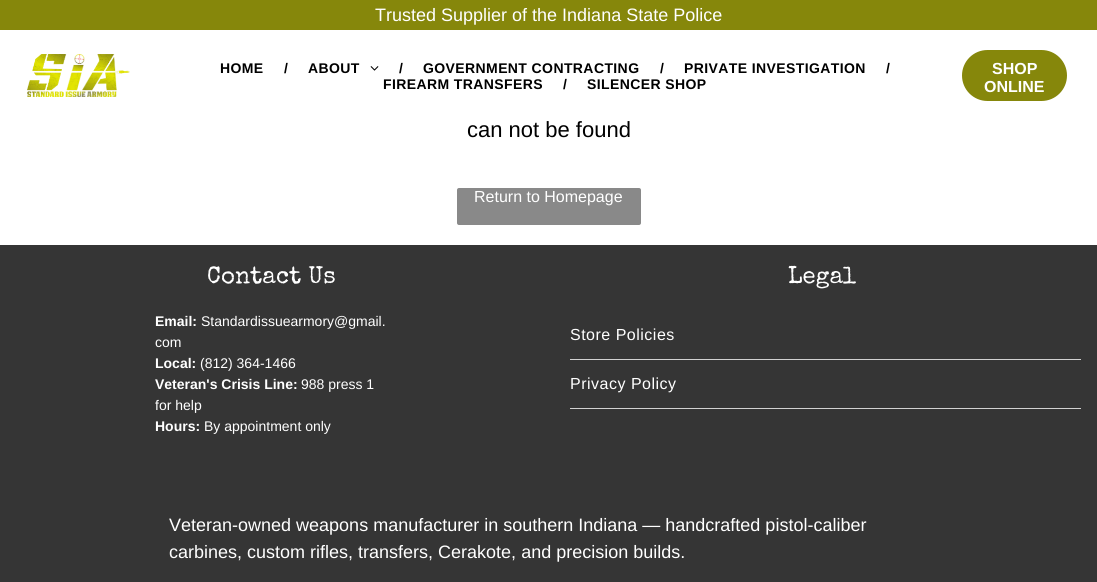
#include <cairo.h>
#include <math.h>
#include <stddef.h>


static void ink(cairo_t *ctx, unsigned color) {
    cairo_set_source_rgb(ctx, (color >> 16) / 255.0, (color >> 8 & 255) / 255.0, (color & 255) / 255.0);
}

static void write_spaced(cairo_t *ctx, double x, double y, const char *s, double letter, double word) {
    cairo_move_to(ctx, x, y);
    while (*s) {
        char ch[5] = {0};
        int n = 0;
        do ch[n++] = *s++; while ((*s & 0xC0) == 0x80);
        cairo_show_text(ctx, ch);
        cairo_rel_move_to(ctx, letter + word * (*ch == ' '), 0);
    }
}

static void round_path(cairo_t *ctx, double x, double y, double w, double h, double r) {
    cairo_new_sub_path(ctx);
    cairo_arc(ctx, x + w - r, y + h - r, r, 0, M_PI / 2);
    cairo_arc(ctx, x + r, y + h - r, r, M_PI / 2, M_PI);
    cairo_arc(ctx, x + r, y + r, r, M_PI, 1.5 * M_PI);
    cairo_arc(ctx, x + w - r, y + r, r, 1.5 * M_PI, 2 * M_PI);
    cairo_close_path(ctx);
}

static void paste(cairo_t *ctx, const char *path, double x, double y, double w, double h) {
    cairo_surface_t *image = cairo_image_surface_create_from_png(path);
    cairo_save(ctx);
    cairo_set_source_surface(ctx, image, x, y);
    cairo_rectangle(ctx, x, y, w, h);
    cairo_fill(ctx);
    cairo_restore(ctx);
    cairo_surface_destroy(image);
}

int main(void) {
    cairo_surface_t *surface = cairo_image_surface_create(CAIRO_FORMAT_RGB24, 1097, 582);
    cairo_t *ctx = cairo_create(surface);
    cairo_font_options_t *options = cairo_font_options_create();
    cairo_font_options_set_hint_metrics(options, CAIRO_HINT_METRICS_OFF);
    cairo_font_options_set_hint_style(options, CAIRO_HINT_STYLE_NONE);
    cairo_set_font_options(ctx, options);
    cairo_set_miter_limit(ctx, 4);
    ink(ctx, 0xFFFFFF);
    cairo_paint(ctx);
    ink(ctx, 0x86870B);
    cairo_rectangle(ctx, 0, 0, 1097, 30);
    cairo_fill(ctx);
    cairo_select_font_face(ctx, "Liberation Sans", CAIRO_FONT_SLANT_NORMAL, CAIRO_FONT_WEIGHT_NORMAL);
    cairo_set_font_size(ctx, 18);
    ink(ctx, 0xFFFFFF);
    cairo_move_to(ctx, 375, 21);
    cairo_show_text(ctx, "Trusted Supplier of the Indiana State Police");
    paste(ctx, "media/1.png", 27, 54, 103, 43);
    cairo_select_font_face(ctx, "Liberation Sans", CAIRO_FONT_SLANT_NORMAL, CAIRO_FONT_WEIGHT_BOLD);
    cairo_set_font_size(ctx, 14);
    ink(ctx, 0x000000);
    write_spaced(ctx, 220, 73, "HOME", 0.4, 0);
    cairo_move_to(ctx, 284, 73);
    cairo_show_text(ctx, "/");
    write_spaced(ctx, 308, 73, "ABOUT", 0.4, 0);
    paste(ctx, "media/2.png", 370, 66, 9, 5);
    cairo_move_to(ctx, 399, 73);
    cairo_show_text(ctx, "/");
    write_spaced(ctx, 423, 73, "GOVERNMENT CONTRACTING", 0.4, 0);
    cairo_move_to(ctx, 660, 73);
    cairo_show_text(ctx, "/");
    write_spaced(ctx, 684, 73, "PRIVATE INVESTIGATION", 0.4, 0);
    cairo_move_to(ctx, 886, 73);
    cairo_show_text(ctx, "/");
    write_spaced(ctx, 383, 89, "FIREARM TRANSFERS", 0.4, 0);
    cairo_move_to(ctx, 563, 89);
    cairo_show_text(ctx, "/");
    write_spaced(ctx, 587, 89, "SILENCER SHOP", 0.4, 0);
    ink(ctx, 0x86870B);
    round_path(ctx, 961, 49, 107, 53, 26.5);
    cairo_fill_preserve(ctx);
    ink(ctx, 0xFFFFFF);
    cairo_stroke(ctx);
    cairo_set_font_size(ctx, 16);
    cairo_move_to(ctx, 992, 74);
    cairo_show_text(ctx, "SHOP");
    cairo_move_to(ctx, 984, 92);
    cairo_show_text(ctx, "ONLINE");
    cairo_select_font_face(ctx, "Liberation Sans", CAIRO_FONT_SLANT_NORMAL, CAIRO_FONT_WEIGHT_NORMAL);
    cairo_set_font_size(ctx, 22);
    ink(ctx, 0x000000);
    cairo_move_to(ctx, 467, 137);
    cairo_show_text(ctx, "can not be found");
    ink(ctx, 0x898989);
    round_path(ctx, 457, 188, 184, 37, 2);
    cairo_fill(ctx);
    cairo_set_font_size(ctx, 16);
    ink(ctx, 0xFFFFFF);
    cairo_move_to(ctx, 474, 202);
    cairo_show_text(ctx, "Return to Homepage");
    ink(ctx, 0x353535);
    cairo_rectangle(ctx, 0, 245, 1097, 337);
    cairo_fill(ctx);
    cairo_select_font_face(ctx, "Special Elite", CAIRO_FONT_SLANT_NORMAL, CAIRO_FONT_WEIGHT_NORMAL);
    cairo_set_font_size(ctx, 24);
    ink(ctx, 0xFFFFFF);
    cairo_move_to(ctx, 207, 283);
    cairo_show_text(ctx, "Contact Us");
    cairo_select_font_face(ctx, "Liberation Sans", CAIRO_FONT_SLANT_NORMAL, CAIRO_FONT_WEIGHT_BOLD);
    cairo_set_font_size(ctx, 14);
    cairo_move_to(ctx, 155, 326);
    cairo_show_text(ctx, "Email:");
    cairo_select_font_face(ctx, "Liberation Sans", CAIRO_FONT_SLANT_NORMAL, CAIRO_FONT_WEIGHT_NORMAL);
    cairo_move_to(ctx, 201, 326);
    cairo_show_text(ctx, "Standardissuearmory@gmail.");
    cairo_move_to(ctx, 155, 347);
    cairo_show_text(ctx, "com");
    cairo_select_font_face(ctx, "Liberation Sans", CAIRO_FONT_SLANT_NORMAL, CAIRO_FONT_WEIGHT_BOLD);
    cairo_move_to(ctx, 155, 368);
    cairo_show_text(ctx, "Local:");
    cairo_select_font_face(ctx, "Liberation Sans", CAIRO_FONT_SLANT_NORMAL, CAIRO_FONT_WEIGHT_NORMAL);
    cairo_move_to(ctx, 200, 368);
    cairo_show_text(ctx, "(812) 364-1466");
    cairo_select_font_face(ctx, "Liberation Sans", CAIRO_FONT_SLANT_NORMAL, CAIRO_FONT_WEIGHT_BOLD);
    cairo_move_to(ctx, 155, 389);
    cairo_show_text(ctx, "Veteran's Crisis Line:");
    cairo_select_font_face(ctx, "Liberation Sans", CAIRO_FONT_SLANT_NORMAL, CAIRO_FONT_WEIGHT_NORMAL);
    cairo_move_to(ctx, 301, 389);
    cairo_show_text(ctx, "988 press 1");
    cairo_move_to(ctx, 155, 410);
    cairo_show_text(ctx, "for help");
    cairo_select_font_face(ctx, "Liberation Sans", CAIRO_FONT_SLANT_NORMAL, CAIRO_FONT_WEIGHT_BOLD);
    cairo_move_to(ctx, 155, 431);
    cairo_show_text(ctx, "Hours:");
    cairo_select_font_face(ctx, "Liberation Sans", CAIRO_FONT_SLANT_NORMAL, CAIRO_FONT_WEIGHT_NORMAL);
    cairo_move_to(ctx, 204, 431);
    cairo_show_text(ctx, "By appointment only");
    cairo_select_font_face(ctx, "Special Elite", CAIRO_FONT_SLANT_NORMAL, CAIRO_FONT_WEIGHT_NORMAL);
    cairo_set_font_size(ctx, 24);
    cairo_move_to(ctx, 788, 283);
    cairo_show_text(ctx, "Legal");
    cairo_select_font_face(ctx, "Liberation Sans", CAIRO_FONT_SLANT_NORMAL, CAIRO_FONT_WEIGHT_NORMAL);
    cairo_set_font_size(ctx, 16);
    write_spaced(ctx, 570, 340, "Store Policies", 0.5, 0);
    ink(ctx, 0xD1D1D1);
    cairo_rectangle(ctx, 570, 359, 511, 1);
    cairo_fill(ctx);
    ink(ctx, 0xFFFFFF);
    write_spaced(ctx, 570, 389, "Privacy Policy", 0.5, 0);
    ink(ctx, 0xD1D1D1);
    cairo_rectangle(ctx, 570, 408, 511, 1);
    cairo_fill(ctx);
    cairo_set_font_size(ctx, 18);
    ink(ctx, 0xFFFFFF);
    cairo_move_to(ctx, 169, 531);
    cairo_show_text(ctx, "Veteran-owned weapons manufacturer in southern Indiana — handcrafted pistol-caliber");
    cairo_move_to(ctx, 169, 558);
    cairo_show_text(ctx, "carbines, custom rifles, transfers, Cerakote, and precision builds.");
    cairo_surface_write_to_png(surface, "image.png");
    cairo_font_options_destroy(options);
    cairo_destroy(ctx);
    cairo_surface_destroy(surface);
    return 0;
}
